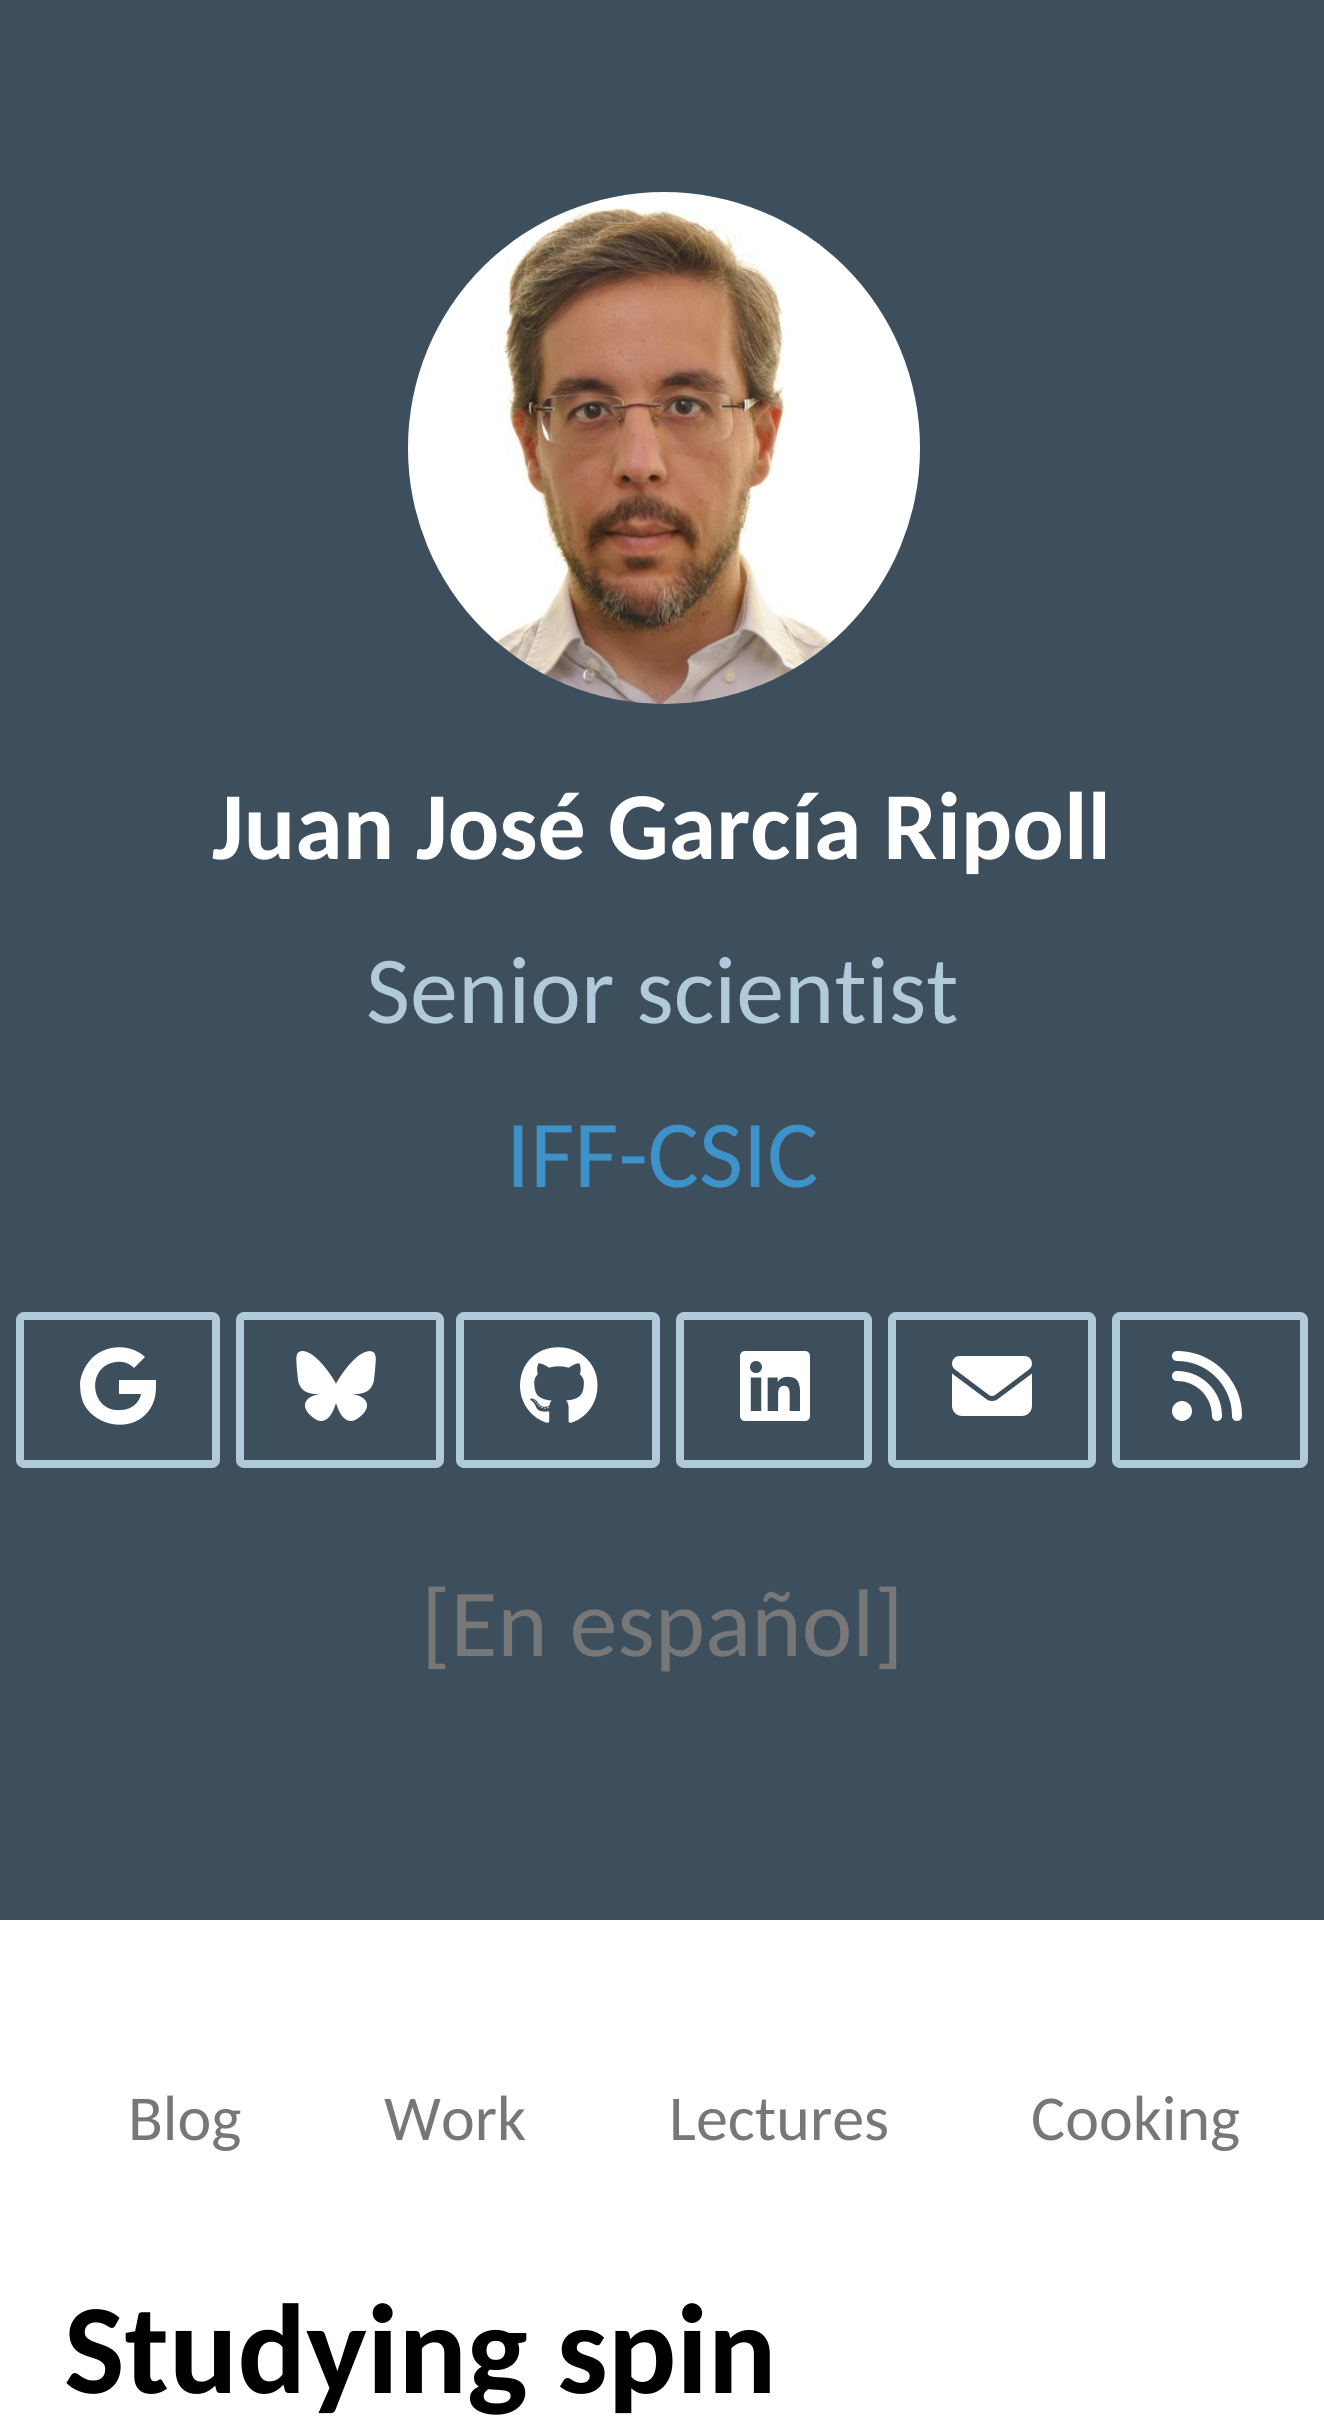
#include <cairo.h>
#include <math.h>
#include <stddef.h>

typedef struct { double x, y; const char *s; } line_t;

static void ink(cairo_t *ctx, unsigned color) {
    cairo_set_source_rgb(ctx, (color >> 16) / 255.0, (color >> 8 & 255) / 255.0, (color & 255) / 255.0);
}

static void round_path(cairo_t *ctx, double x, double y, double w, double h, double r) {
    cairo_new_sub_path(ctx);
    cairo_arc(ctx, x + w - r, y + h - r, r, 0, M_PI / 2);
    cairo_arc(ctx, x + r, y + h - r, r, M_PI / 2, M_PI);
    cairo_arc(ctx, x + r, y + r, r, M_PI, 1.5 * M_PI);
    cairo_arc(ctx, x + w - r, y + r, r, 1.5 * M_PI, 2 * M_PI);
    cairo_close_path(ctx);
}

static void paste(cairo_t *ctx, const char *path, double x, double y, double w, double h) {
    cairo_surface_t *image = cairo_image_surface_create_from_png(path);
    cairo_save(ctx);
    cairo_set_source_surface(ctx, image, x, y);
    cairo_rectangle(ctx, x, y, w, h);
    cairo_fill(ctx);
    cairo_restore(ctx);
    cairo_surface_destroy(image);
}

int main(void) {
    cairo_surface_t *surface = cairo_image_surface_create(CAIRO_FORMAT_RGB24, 1324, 2431);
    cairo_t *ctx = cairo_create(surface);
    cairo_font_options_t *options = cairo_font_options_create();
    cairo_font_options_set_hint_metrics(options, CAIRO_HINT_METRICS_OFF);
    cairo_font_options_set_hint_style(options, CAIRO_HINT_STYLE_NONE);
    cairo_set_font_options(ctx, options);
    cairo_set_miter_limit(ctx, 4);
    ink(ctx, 0xFFFFFF);
    cairo_paint(ctx);
    ink(ctx, 0x3D4F5D);
    cairo_rectangle(ctx, 0, 0, 1324, 1920);
    cairo_fill(ctx);
    paste(ctx, "media/1.png", 408, 192, 512, 512);
    cairo_select_font_face(ctx, "Carlito", CAIRO_FONT_SLANT_NORMAL, CAIRO_FONT_WEIGHT_BOLD);
    cairo_set_font_size(ctx, 96);
    ink(ctx, 0xFFFFFF);
    cairo_move_to(ctx, 212, 859);
    cairo_show_text(ctx, "Juan José García Ripoll");
    cairo_select_font_face(ctx, "Carlito", CAIRO_FONT_SLANT_NORMAL, CAIRO_FONT_WEIGHT_NORMAL);
    ink(ctx, 0xB0CADB);
    cairo_move_to(ctx, 366, 1023);
    cairo_show_text(ctx, "Senior scientist");
    ink(ctx, 0x3D92C9);
    cairo_move_to(ctx, 506, 1187);
    cairo_show_text(ctx, "IFF-CSIC");
    round_path(ctx, 20, 1316, 196, 148, 4);
    ink(ctx, 0xB0CADB);
    cairo_set_line_width(ctx, 8);
    cairo_stroke(ctx);
    ink(ctx, 0xFFFFFF);
    cairo_new_path(ctx);
    cairo_move_to(ctx, 156, 1387);
    cairo_curve_to(ctx, 156, 1397, 153, 1407, 146, 1414);
    cairo_curve_to(ctx, 129, 1432, 97, 1426, 85, 1406);
    cairo_curve_to(ctx, 81, 1399, 80, 1391, 80, 1383);
    cairo_curve_to(ctx, 81, 1373, 86, 1364, 93, 1357);
    cairo_curve_to(ctx, 108, 1344, 131, 1344, 145, 1357);
    cairo_line_to(ctx, 134, 1368);
    cairo_curve_to(ctx, 129, 1363, 123, 1361, 116, 1362);
    cairo_curve_to(ctx, 85, 1366, 90, 1413, 121, 1410);
    cairo_curve_to(ctx, 130, 1410, 139, 1404, 141, 1394);
    cairo_line_to(ctx, 119, 1394);
    cairo_line_to(ctx, 119, 1380);
    cairo_line_to(ctx, 156, 1380);
    cairo_close_path(ctx);
    cairo_fill(ctx);
    round_path(ctx, 240, 1316, 200, 148, 4);
    ink(ctx, 0xB0CADB);
    cairo_stroke(ctx);
    paste(ctx, "media/2.png", 296, 1351, 80, 70);
    round_path(ctx, 460, 1316, 196, 148, 4);
    cairo_stroke(ctx);
    paste(ctx, "media/3.png", 520, 1347, 78, 76);
    round_path(ctx, 680, 1316, 188, 148, 4);
    cairo_stroke(ctx);
    paste(ctx, "media/4.png", 740, 1351, 70, 70);
    round_path(ctx, 892, 1316, 200, 148, 4);
    cairo_stroke(ctx);
    paste(ctx, "media/5.png", 952, 1356, 80, 60);
    round_path(ctx, 1116, 1316, 188, 148, 4);
    cairo_stroke(ctx);
    paste(ctx, "media/6.png", 1172, 1351, 70, 70);
    ink(ctx, 0x777777);
    cairo_move_to(ctx, 421, 1656);
    cairo_show_text(ctx, "[En español]");
    cairo_set_font_size(ctx, 64);
    {
        static const line_t items[] = {
            {128, 2140, "Blog"},
            {384, 2140, "Work"},
            {669, 2140, "Lectures"},
            {1031, 2140, "Cooking"},
        };
        for (size_t i = 0; i < sizeof items / sizeof *items; i++) {
            cairo_move_to(ctx, items[i].x, items[i].y);
            cairo_show_text(ctx, items[i].s);
        }
    }
    cairo_select_font_face(ctx, "Carlito", CAIRO_FONT_SLANT_NORMAL, CAIRO_FONT_WEIGHT_BOLD);
    cairo_set_font_size(ctx, 128);
    ink(ctx, 0x000000);
    cairo_move_to(ctx, 64, 2393);
    cairo_show_text(ctx, "Studying spin");
    cairo_surface_write_to_png(surface, "image.png");
    cairo_font_options_destroy(options);
    cairo_destroy(ctx);
    cairo_surface_destroy(surface);
    return 0;
}
